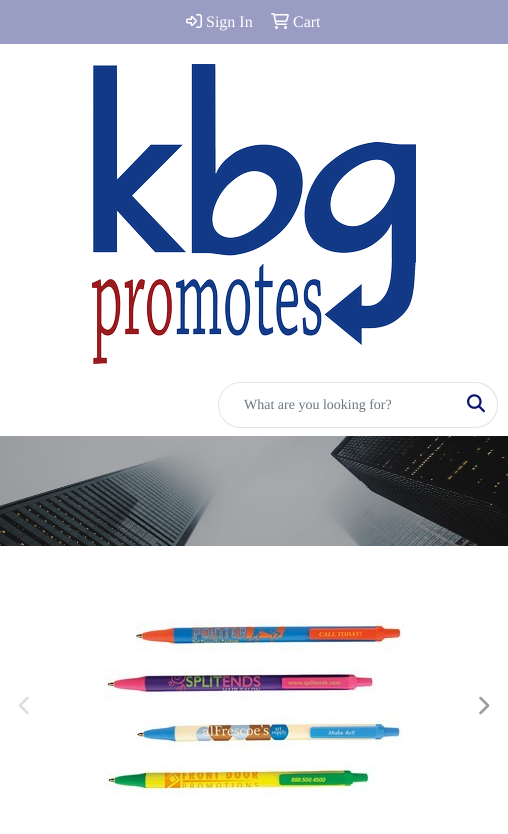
#include <cairo.h>
#include <math.h>
#include <stddef.h>


static void ink(cairo_t *ctx, unsigned color) {
    cairo_set_source_rgb(ctx, (color >> 16) / 255.0, (color >> 8 & 255) / 255.0, (color & 255) / 255.0);
}

static void paste(cairo_t *ctx, const char *path, double x, double y, double w, double h) {
    cairo_surface_t *image = cairo_image_surface_create_from_png(path);
    cairo_save(ctx);
    cairo_set_source_surface(ctx, image, x, y);
    cairo_rectangle(ctx, x, y, w, h);
    cairo_fill(ctx);
    cairo_restore(ctx);
    cairo_surface_destroy(image);
}

int main(void) {
    cairo_surface_t *surface = cairo_image_surface_create(CAIRO_FORMAT_RGB24, 508, 834);
    cairo_t *ctx = cairo_create(surface);
    cairo_font_options_t *options = cairo_font_options_create();
    cairo_font_options_set_hint_metrics(options, CAIRO_HINT_METRICS_OFF);
    cairo_font_options_set_hint_style(options, CAIRO_HINT_STYLE_NONE);
    cairo_set_font_options(ctx, options);
    cairo_set_miter_limit(ctx, 4);
    ink(ctx, 0xFFFFFF);
    cairo_paint(ctx);
    ink(ctx, 0x9A9DC3);
    cairo_rectangle(ctx, 0, 0, 508, 44);
    cairo_fill(ctx);
    paste(ctx, "media/1.png", 186, 14, 16, 14);
    cairo_select_font_face(ctx, "Liberation Serif", CAIRO_FONT_SLANT_NORMAL, CAIRO_FONT_WEIGHT_NORMAL);
    cairo_set_font_size(ctx, 16);
    ink(ctx, 0xFFFFFF);
    cairo_move_to(ctx, 206, 27);
    cairo_show_text(ctx, "Sign In");
    paste(ctx, "media/2.png", 271, 13, 18, 16);
    cairo_move_to(ctx, 293, 27);
    cairo_show_text(ctx, "Cart");
    paste(ctx, "media/3.png", 92, 64, 324, 300);
    cairo_new_path(ctx);
    cairo_move_to(ctx, 241, 382.5);
    cairo_line_to(ctx, 455.5, 382.5);
    cairo_line_to(ctx, 455.5, 427.5);
    cairo_line_to(ctx, 241, 427.5);
    cairo_curve_to(ctx, 228.5, 427.5, 218.5, 417.5, 218.5, 405);
    cairo_curve_to(ctx, 218.5, 392.5, 228.5, 382.5, 241, 382.5);
    cairo_close_path(ctx);
    ink(ctx, 0xE4E4E4);
    cairo_set_line_width(ctx, 1);
    cairo_stroke(ctx);
    cairo_set_font_size(ctx, 14);
    ink(ctx, 0x6C757D);
    cairo_move_to(ctx, 244, 409);
    cairo_show_text(ctx, "What are you looking for?");
    ink(ctx, 0xFFFFFF);
    cairo_new_path(ctx);
    cairo_move_to(ctx, 455, 383);
    cairo_line_to(ctx, 475, 383);
    cairo_curve_to(ctx, 487, 383, 497, 393, 497, 405);
    cairo_curve_to(ctx, 497, 417, 487, 427, 475, 427);
    cairo_line_to(ctx, 455, 427);
    cairo_close_path(ctx);
    cairo_fill(ctx);
    ink(ctx, 0xE4E4E4);
    cairo_set_fill_rule(ctx, CAIRO_FILL_RULE_EVEN_ODD);
    cairo_new_path(ctx);
    cairo_move_to(ctx, 455, 382);
    cairo_line_to(ctx, 475, 382);
    cairo_curve_to(ctx, 488, 382, 498, 392, 498, 405);
    cairo_curve_to(ctx, 498, 418, 488, 428, 475, 428);
    cairo_line_to(ctx, 455, 428);
    cairo_close_path(ctx);
    cairo_move_to(ctx, 455, 383);
    cairo_line_to(ctx, 475, 383);
    cairo_curve_to(ctx, 487, 383, 497, 393, 497, 405);
    cairo_curve_to(ctx, 497, 417, 487, 427, 475, 427);
    cairo_line_to(ctx, 455, 427);
    cairo_close_path(ctx);
    cairo_fill(ctx);
    paste(ctx, "media/4.png", 467, 394, 18, 19);
    paste(ctx, "media/5.png", 0, 436, 508, 110);
    paste(ctx, "media/6.png", 18, 619, 472, 177);
    cairo_surface_write_to_png(surface, "image.png");
    cairo_font_options_destroy(options);
    cairo_destroy(ctx);
    cairo_surface_destroy(surface);
    return 0;
}
